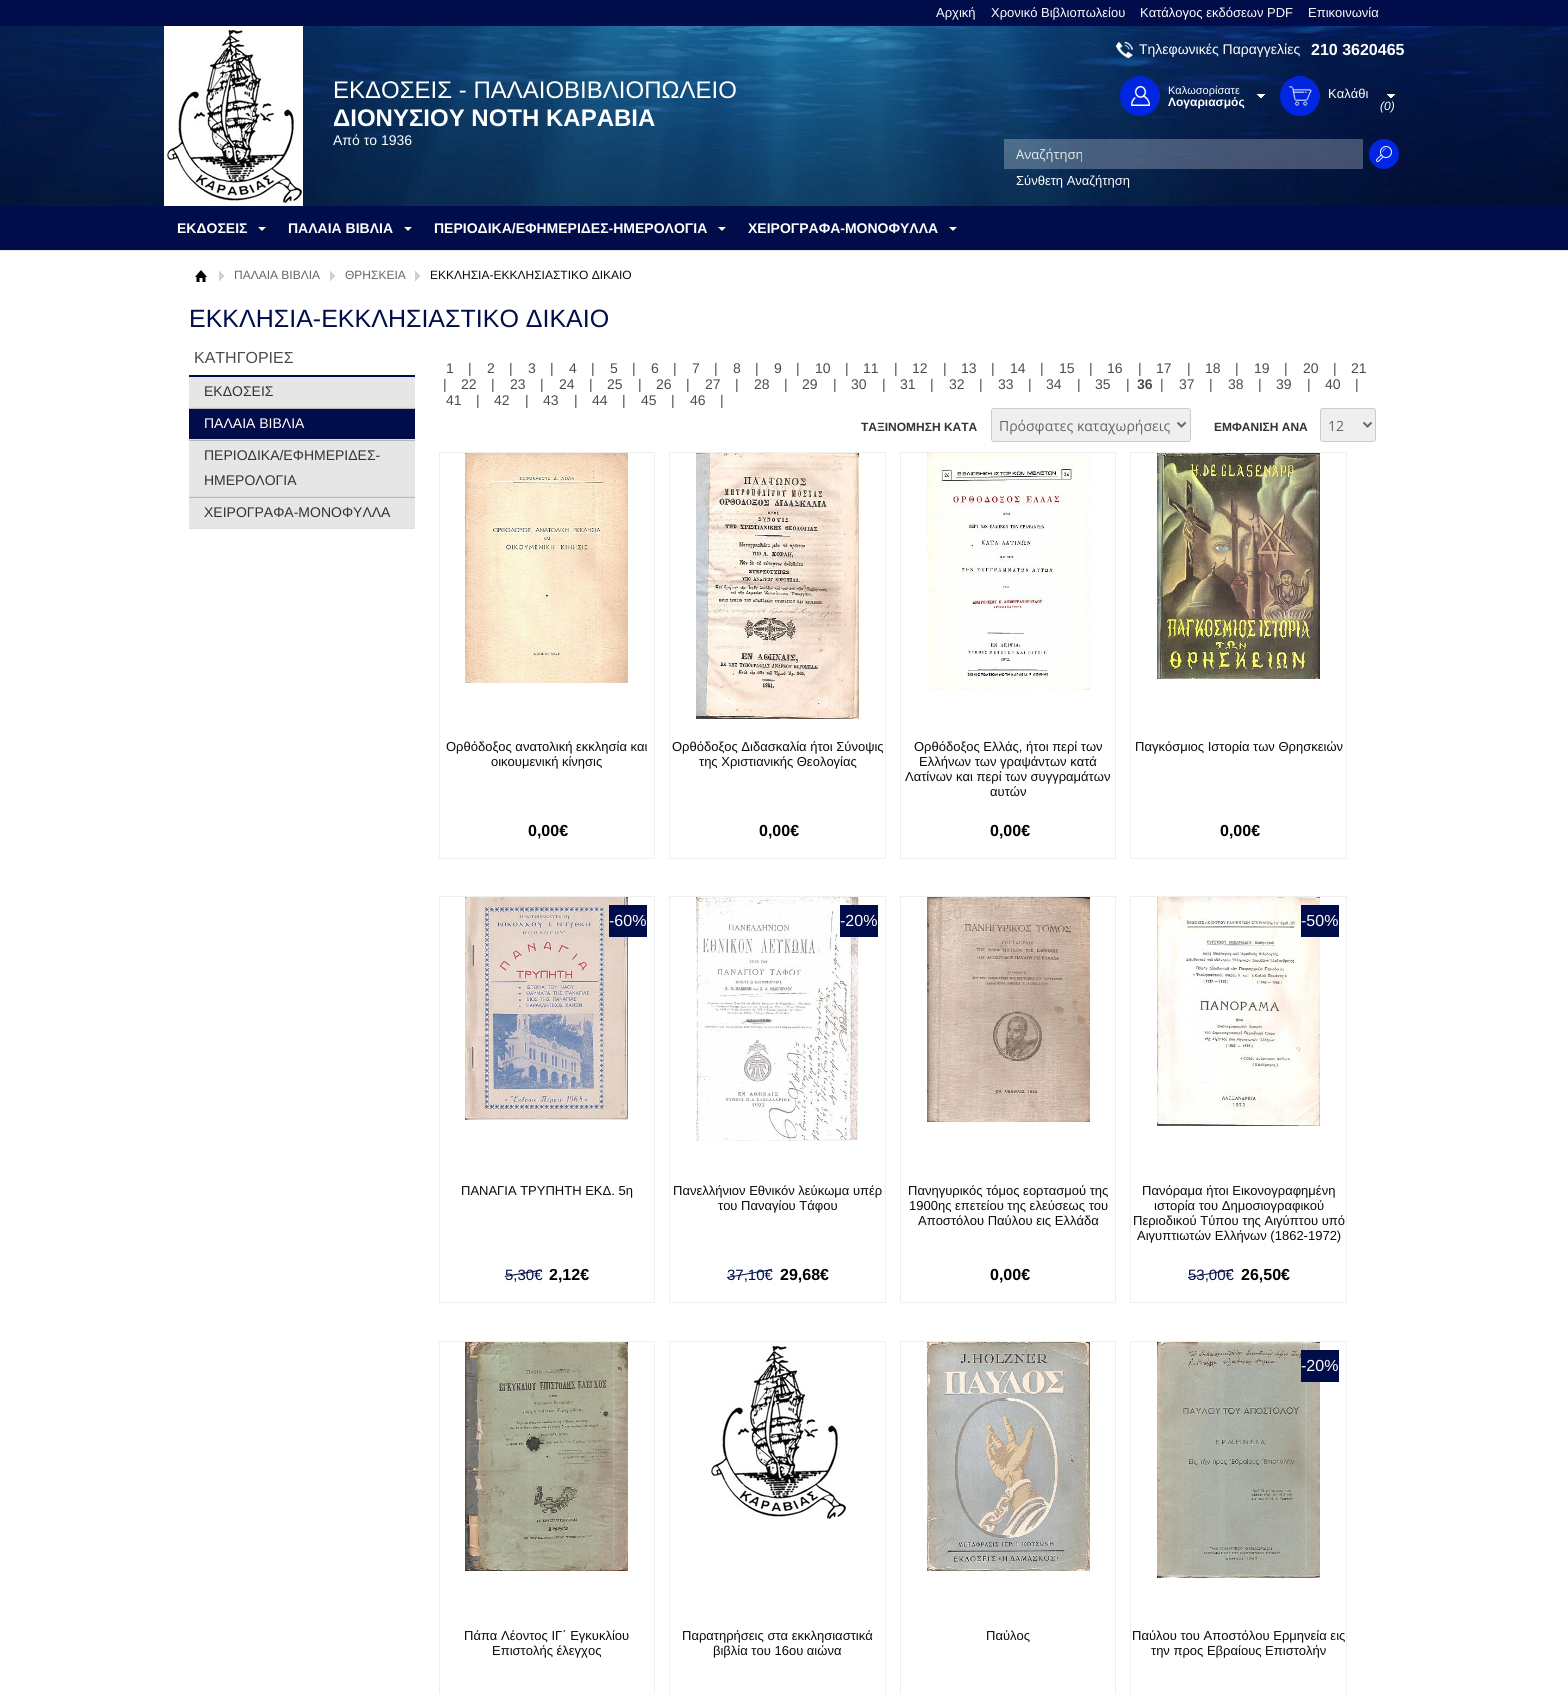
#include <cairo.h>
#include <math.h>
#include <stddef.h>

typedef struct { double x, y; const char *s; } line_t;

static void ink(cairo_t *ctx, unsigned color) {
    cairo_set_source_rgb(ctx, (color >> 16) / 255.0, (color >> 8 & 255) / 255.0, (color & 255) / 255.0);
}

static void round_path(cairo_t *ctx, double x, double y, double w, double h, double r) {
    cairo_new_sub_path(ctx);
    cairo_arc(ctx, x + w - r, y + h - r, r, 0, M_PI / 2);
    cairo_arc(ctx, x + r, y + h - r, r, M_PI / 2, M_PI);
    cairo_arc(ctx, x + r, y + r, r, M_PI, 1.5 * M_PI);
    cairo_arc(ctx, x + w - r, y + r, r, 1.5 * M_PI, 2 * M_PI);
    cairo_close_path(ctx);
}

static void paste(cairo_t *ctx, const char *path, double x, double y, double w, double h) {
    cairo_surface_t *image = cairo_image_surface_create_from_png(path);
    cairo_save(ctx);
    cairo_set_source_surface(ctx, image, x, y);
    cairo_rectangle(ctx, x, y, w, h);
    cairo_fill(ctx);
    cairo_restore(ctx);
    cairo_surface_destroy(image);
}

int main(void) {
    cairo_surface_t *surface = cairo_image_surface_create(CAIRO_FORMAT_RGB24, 1568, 1694);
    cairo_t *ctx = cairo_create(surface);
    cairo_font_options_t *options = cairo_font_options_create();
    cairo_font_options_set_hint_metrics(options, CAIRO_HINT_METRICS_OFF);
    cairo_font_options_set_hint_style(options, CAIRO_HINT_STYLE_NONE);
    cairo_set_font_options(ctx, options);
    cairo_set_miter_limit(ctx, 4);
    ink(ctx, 0xFFFFFF);
    cairo_paint(ctx);
    ink(ctx, 0x010D4A);
    cairo_rectangle(ctx, 0, 0, 1568, 26);
    cairo_fill(ctx);
    cairo_select_font_face(ctx, "Liberation Sans", CAIRO_FONT_SLANT_NORMAL, CAIRO_FONT_WEIGHT_NORMAL);
    cairo_set_font_size(ctx, 13);
    ink(ctx, 0xFFFFFF);
    {
        static const line_t items[] = {
            {936, 17, "Αρχική"},
            {991, 17, "Χρονικό Βιβλιοπωλείου"},
            {1140, 17, "Κατάλογος εκδόσεων PDF"},
            {1308, 17, "Επικοινωνία"},
        };
        for (size_t i = 0; i < sizeof items / sizeof *items; i++) {
            cairo_move_to(ctx, items[i].x, items[i].y);
            cairo_show_text(ctx, items[i].s);
        }
    }
    paste(ctx, "media/1.png", 0, 26, 1568, 180);
    paste(ctx, "media/2.png", 164, 26, 139, 180);
    paste(ctx, "media/3.png", 1116, 42, 17, 16);
    cairo_set_font_size(ctx, 14);
    cairo_move_to(ctx, 1139, 54);
    cairo_show_text(ctx, "Τηλεφωνικές Παραγγελίες");
    cairo_select_font_face(ctx, "Liberation Sans", CAIRO_FONT_SLANT_NORMAL, CAIRO_FONT_WEIGHT_BOLD);
    cairo_set_font_size(ctx, 16);
    cairo_move_to(ctx, 1311, 55);
    cairo_show_text(ctx, "210 3620465");
    cairo_select_font_face(ctx, "Liberation Sans", CAIRO_FONT_SLANT_NORMAL, CAIRO_FONT_WEIGHT_NORMAL);
    cairo_set_font_size(ctx, 24);
    cairo_move_to(ctx, 333, 98);
    cairo_show_text(ctx, "ΕΚΔΟΣΕΙΣ - ΠΑΛΑΙΟΒΙΒΛΙΟΠΩΛΕΙΟ");
    cairo_select_font_face(ctx, "Liberation Sans", CAIRO_FONT_SLANT_NORMAL, CAIRO_FONT_WEIGHT_BOLD);
    cairo_move_to(ctx, 333, 126);
    cairo_show_text(ctx, "ΔΙΟΝΥΣΙΟΥ ΝΟΤΗ ΚΑΡΑΒΙΑ");
    cairo_select_font_face(ctx, "Liberation Sans", CAIRO_FONT_SLANT_NORMAL, CAIRO_FONT_WEIGHT_NORMAL);
    cairo_set_font_size(ctx, 14);
    cairo_move_to(ctx, 333, 145);
    cairo_show_text(ctx, "Από το 1936");
    paste(ctx, "media/4.png", 1120, 76, 40, 40);
    paste(ctx, "media/5.png", 1257, 94, 8, 4);
    cairo_set_font_size(ctx, 11);
    cairo_move_to(ctx, 1168, 94);
    cairo_show_text(ctx, "Καλωσορίσατε");
    cairo_select_font_face(ctx, "Liberation Sans", CAIRO_FONT_SLANT_NORMAL, CAIRO_FONT_WEIGHT_BOLD);
    cairo_set_font_size(ctx, 12);
    cairo_move_to(ctx, 1168, 106);
    cairo_show_text(ctx, "Λογαριασμός");
    paste(ctx, "media/6.png", 1280, 76, 40, 40);
    paste(ctx, "media/7.png", 1387, 94, 8, 4);
    cairo_select_font_face(ctx, "Liberation Sans", CAIRO_FONT_SLANT_NORMAL, CAIRO_FONT_WEIGHT_NORMAL);
    cairo_set_font_size(ctx, 13);
    cairo_move_to(ctx, 1328, 98);
    cairo_show_text(ctx, "Καλάθι");
    cairo_select_font_face(ctx, "Liberation Sans", CAIRO_FONT_SLANT_ITALIC, CAIRO_FONT_WEIGHT_NORMAL);
    cairo_set_font_size(ctx, 12);
    cairo_move_to(ctx, 1380, 110);
    cairo_show_text(ctx, "(0)");
    cairo_set_source_rgba(ctx, 1, 1, 1, 0.26);
    cairo_rectangle(ctx, 1004, 139, 359, 30);
    cairo_fill(ctx);
    cairo_select_font_face(ctx, "Open Sans", CAIRO_FONT_SLANT_NORMAL, CAIRO_FONT_WEIGHT_NORMAL);
    cairo_set_font_size(ctx, 13);
    ink(ctx, 0xECECEC);
    cairo_move_to(ctx, 1016, 159);
    cairo_show_text(ctx, "Αναζήτηση");
    ink(ctx, 0x0126E2);
    cairo_new_path(ctx);
    cairo_arc(ctx, 1384, 154, 15, 0, 2 * M_PI);
    cairo_fill(ctx);
    paste(ctx, "media/8.png", 1376, 146, 16, 16);
    cairo_select_font_face(ctx, "Liberation Sans", CAIRO_FONT_SLANT_NORMAL, CAIRO_FONT_WEIGHT_NORMAL);
    ink(ctx, 0xFFFFFF);
    cairo_move_to(ctx, 1016, 185);
    cairo_show_text(ctx, "Σύνθετη Αναζήτηση");
    ink(ctx, 0x010D4A);
    cairo_rectangle(ctx, 0, 206, 1568, 44);
    cairo_fill(ctx);
    ink(ctx, 0xEAEAEA);
    cairo_rectangle(ctx, 0, 250, 1568, 1);
    cairo_fill(ctx);
    cairo_select_font_face(ctx, "Liberation Sans", CAIRO_FONT_SLANT_NORMAL, CAIRO_FONT_WEIGHT_BOLD);
    cairo_set_font_size(ctx, 14);
    ink(ctx, 0xFFFFFF);
    cairo_move_to(ctx, 177, 233);
    cairo_show_text(ctx, "ΕΚΔΟΣΕΙΣ");
    paste(ctx, "media/9.png", 258, 227, 8, 5);
    cairo_move_to(ctx, 288, 233);
    cairo_show_text(ctx, "ΠΑΛΑΙΑ ΒΙΒΛΙΑ");
    paste(ctx, "media/9.png", 404, 227, 8, 5);
    cairo_move_to(ctx, 434, 233);
    cairo_show_text(ctx, "ΠΕΡΙΟΔΙΚΑ/ΕΦΗΜΕΡΙΔΕΣ-ΗΜΕΡΟΛΟΓΙΑ");
    paste(ctx, "media/9.png", 718, 227, 8, 5);
    cairo_move_to(ctx, 748, 233);
    cairo_show_text(ctx, "ΧΕΙΡΟΓΡΑΦΑ-ΜΟΝΟΦΥΛΛΑ");
    paste(ctx, "media/9.png", 949, 227, 8, 5);
    paste(ctx, "media/10.png", 195, 270, 12, 12);
    paste(ctx, "media/11.png", 219, 271, 5, 10);
    cairo_select_font_face(ctx, "Liberation Sans", CAIRO_FONT_SLANT_NORMAL, CAIRO_FONT_WEIGHT_NORMAL);
    cairo_set_font_size(ctx, 12);
    ink(ctx, 0x666666);
    cairo_move_to(ctx, 234, 279);
    cairo_show_text(ctx, "ΠΑΛΑΙΑ ΒΙΒΛΙΑ");
    paste(ctx, "media/11.png", 330, 271, 5, 10);
    cairo_move_to(ctx, 345, 279);
    cairo_show_text(ctx, "ΘΡΗΣΚΕΙΑ");
    paste(ctx, "media/11.png", 415, 271, 5, 10);
    ink(ctx, 0x0A0A08);
    cairo_move_to(ctx, 430, 279);
    cairo_show_text(ctx, "ΕΚΚΛΗΣΙΑ-ΕΚΚΛΗΣΙΑΣΤΙΚΟ ΔΙΚΑΙΟ");
    cairo_set_font_size(ctx, 25);
    ink(ctx, 0x010D4A);
    cairo_move_to(ctx, 189, 327);
    cairo_show_text(ctx, "ΕΚΚΛΗΣΙΑ-ΕΚΚΛΗΣΙΑΣΤΙΚΟ ΔΙΚΑΙΟ");
    cairo_rectangle(ctx, 189, 375, 226, 2);
    cairo_fill(ctx);
    cairo_set_font_size(ctx, 16);
    ink(ctx, 0x4C4C4D);
    cairo_move_to(ctx, 194, 363);
    cairo_show_text(ctx, "ΚΑΤΗΓΟΡΙΕΣ");
    ink(ctx, 0xE6E6E6);
    cairo_rectangle(ctx, 189, 377, 226, 31);
    cairo_fill(ctx);
    cairo_new_path(ctx);
    cairo_move_to(ctx, 189, 407.5);
    cairo_line_to(ctx, 415, 407.5);
    ink(ctx, 0xD9D9D9);
    cairo_set_line_width(ctx, 1);
    cairo_set_dash(ctx, (double[]){1, 1}, 2, 0);
    cairo_stroke(ctx);
    cairo_set_font_size(ctx, 14);
    ink(ctx, 0x333333);
    cairo_move_to(ctx, 204, 396);
    cairo_show_text(ctx, "ΕΚΔΟΣΕΙΣ");
    ink(ctx, 0xE6E6E6);
    cairo_rectangle(ctx, 190, 439, 225, 1);
    cairo_fill(ctx);
    cairo_new_path(ctx);
    cairo_move_to(ctx, 189, 439.5);
    cairo_line_to(ctx, 415, 439.5);
    ink(ctx, 0xD9D9D9);
    cairo_stroke(ctx);
    ink(ctx, 0x010D4A);
    cairo_rectangle(ctx, 189, 409, 226, 30);
    cairo_fill(ctx);
    ink(ctx, 0xB9B9B9);
    cairo_rectangle(ctx, 189, 408, 226, 1);
    cairo_fill(ctx);
    ink(ctx, 0xFFFFFF);
    cairo_move_to(ctx, 204, 428);
    cairo_show_text(ctx, "ΠΑΛΑΙΑ ΒΙΒΛΙΑ");
    ink(ctx, 0xE6E6E6);
    cairo_rectangle(ctx, 189, 441, 226, 56);
    cairo_fill(ctx);
    cairo_new_path(ctx);
    cairo_move_to(ctx, 189, 496.5);
    cairo_line_to(ctx, 415, 496.5);
    ink(ctx, 0xD9D9D9);
    cairo_stroke(ctx);
    ink(ctx, 0xB9B9B9);
    cairo_rectangle(ctx, 189, 440, 226, 1);
    cairo_fill(ctx);
    ink(ctx, 0x333333);
    cairo_move_to(ctx, 204, 460);
    cairo_show_text(ctx, "ΠΕΡΙΟΔΙΚΑ/ΕΦΗΜΕΡΙΔΕΣ-");
    cairo_move_to(ctx, 204, 485);
    cairo_show_text(ctx, "ΗΜΕΡΟΛΟΓΙΑ");
    ink(ctx, 0xE6E6E6);
    cairo_rectangle(ctx, 189, 498, 226, 31);
    cairo_fill(ctx);
    cairo_new_path(ctx);
    cairo_move_to(ctx, 189, 528.5);
    cairo_line_to(ctx, 415, 528.5);
    ink(ctx, 0xD9D9D9);
    cairo_stroke(ctx);
    ink(ctx, 0xB9B9B9);
    cairo_rectangle(ctx, 189, 497, 226, 1);
    cairo_fill(ctx);
    ink(ctx, 0x333333);
    cairo_move_to(ctx, 204, 517);
    cairo_show_text(ctx, "ΧΕΙΡΟΓΡΑΦΑ-ΜΟΝΟΦΥΛΛΑ");
    ink(ctx, 0x4C4C4D);
    {
        static const line_t items[] = {
            {446, 373, "1"},
            {468, 373, "|"},
            {487, 373, "2"},
            {509, 373, "|"},
            {528, 373, "3"},
            {550, 373, "|"},
            {569, 373, "4"},
            {591, 373, "|"},
            {610, 373, "5"},
            {632, 373, "|"},
            {651, 373, "6"},
            {673, 373, "|"},
            {692, 373, "7"},
            {714, 373, "|"},
            {733, 373, "8"},
            {755, 373, "|"},
            {774, 373, "9"},
            {796, 373, "|"},
            {815, 373, "10"},
            {845, 373, "|"},
            {863, 373, "11"},
            {894, 373, "|"},
            {912, 373, "12"},
            {943, 373, "|"},
            {961, 373, "13"},
            {991, 373, "|"},
            {1010, 373, "14"},
            {1040, 373, "|"},
            {1059, 373, "15"},
            {1089, 373, "|"},
            {1107, 373, "16"},
            {1138, 373, "|"},
            {1156, 373, "17"},
            {1187, 373, "|"},
            {1205, 373, "18"},
            {1235, 373, "|"},
            {1254, 373, "19"},
            {1284, 373, "|"},
            {1303, 373, "20"},
            {1333, 373, "|"},
            {1351, 373, "21"},
            {443, 389, "|"},
            {461, 389, "22"},
            {491, 389, "|"},
            {510, 389, "23"},
            {540, 389, "|"},
            {559, 389, "24"},
            {589, 389, "|"},
            {607, 389, "25"},
            {638, 389, "|"},
            {656, 389, "26"},
            {686, 389, "|"},
            {705, 389, "27"},
            {735, 389, "|"},
            {754, 389, "28"},
            {784, 389, "|"},
            {802, 389, "29"},
            {833, 389, "|"},
            {851, 389, "30"},
            {882, 389, "|"},
            {900, 389, "31"},
            {930, 389, "|"},
            {949, 389, "32"},
            {979, 389, "|"},
            {998, 389, "33"},
            {1028, 389, "|"},
            {1046, 389, "34"},
            {1077, 389, "|"},
            {1095, 389, "35"},
            {1126, 389, "|"},
        };
        for (size_t i = 0; i < sizeof items / sizeof *items; i++) {
            cairo_move_to(ctx, items[i].x, items[i].y);
            cairo_show_text(ctx, items[i].s);
        }
    }
    cairo_select_font_face(ctx, "Liberation Sans", CAIRO_FONT_SLANT_NORMAL, CAIRO_FONT_WEIGHT_BOLD);
    cairo_move_to(ctx, 1137, 389);
    cairo_show_text(ctx, "36");
    cairo_select_font_face(ctx, "Liberation Sans", CAIRO_FONT_SLANT_NORMAL, CAIRO_FONT_WEIGHT_NORMAL);
    {
        static const line_t items[] = {
            {1160, 389, "|"},
            {1179, 389, "37"},
            {1209, 389, "|"},
            {1228, 389, "38"},
            {1258, 389, "|"},
            {1276, 389, "39"},
            {1307, 389, "|"},
            {1325, 389, "40"},
            {1355, 389, "|"},
            {446, 405, "41"},
            {476, 405, "|"},
            {494, 405, "42"},
            {525, 405, "|"},
            {543, 405, "43"},
            {574, 405, "|"},
            {592, 405, "44"},
            {622, 405, "|"},
            {641, 405, "45"},
            {671, 405, "|"},
            {690, 405, "46"},
            {720, 405, "|"},
        };
        for (size_t i = 0; i < sizeof items / sizeof *items; i++) {
            cairo_move_to(ctx, items[i].x, items[i].y);
            cairo_show_text(ctx, items[i].s);
        }
    }
    cairo_select_font_face(ctx, "Liberation Sans", CAIRO_FONT_SLANT_NORMAL, CAIRO_FONT_WEIGHT_BOLD);
    cairo_set_font_size(ctx, 12);
    ink(ctx, 0x333333);
    cairo_move_to(ctx, 861, 431);
    cairo_show_text(ctx, "ΤΑΞΙΝΟΜΗΣΗ ΚΑΤΑ");
    ink(ctx, 0xEFEFEF);
    round_path(ctx, 991.5, 408.5, 199, 33, 2.5);
    cairo_fill_preserve(ctx);
    ink(ctx, 0xCCCCCC);
    cairo_set_dash(ctx, NULL, 0, 0);
    cairo_stroke(ctx);
    cairo_new_path(ctx);
    cairo_move_to(ctx, 1177.5, 422.5);
    cairo_line_to(ctx, 1181.5, 426.5);
    cairo_line_to(ctx, 1185.5, 422.5);
    ink(ctx, 0x666666);
    cairo_set_line_width(ctx, 2);
    cairo_stroke(ctx);
    cairo_select_font_face(ctx, "Open Sans", CAIRO_FONT_SLANT_NORMAL, CAIRO_FONT_WEIGHT_NORMAL);
    cairo_set_font_size(ctx, 14);
    cairo_move_to(ctx, 999, 431);
    cairo_show_text(ctx, "Πρόσφατες καταχωρήσεις");
    cairo_select_font_face(ctx, "Liberation Sans", CAIRO_FONT_SLANT_NORMAL, CAIRO_FONT_WEIGHT_BOLD);
    cairo_set_font_size(ctx, 12);
    ink(ctx, 0x333333);
    cairo_move_to(ctx, 1214, 431);
    cairo_show_text(ctx, "ΕΜΦΑΝΙΣΗ ΑΝΑ");
    ink(ctx, 0xEFEFEF);
    round_path(ctx, 1320.5, 408.5, 55, 33, 2.5);
    cairo_fill_preserve(ctx);
    ink(ctx, 0xCCCCCC);
    cairo_set_line_width(ctx, 1);
    cairo_stroke(ctx);
    cairo_new_path(ctx);
    cairo_move_to(ctx, 1363.5, 422.5);
    cairo_line_to(ctx, 1367.5, 426.5);
    cairo_line_to(ctx, 1371.5, 422.5);
    ink(ctx, 0x666666);
    cairo_set_line_width(ctx, 2);
    cairo_stroke(ctx);
    cairo_select_font_face(ctx, "Open Sans", CAIRO_FONT_SLANT_NORMAL, CAIRO_FONT_WEIGHT_NORMAL);
    cairo_set_font_size(ctx, 14);
    cairo_move_to(ctx, 1328, 431);
    cairo_show_text(ctx, "12");
    cairo_rectangle(ctx, 439.5, 452.5, 215, 406);
    ink(ctx, 0xEFEFEF);
    cairo_set_line_width(ctx, 1);
    cairo_stroke(ctx);
    paste(ctx, "media/12.png", 465, 453, 163, 230);
    cairo_select_font_face(ctx, "Liberation Sans", CAIRO_FONT_SLANT_NORMAL, CAIRO_FONT_WEIGHT_NORMAL);
    cairo_set_font_size(ctx, 13);
    ink(ctx, 0x0A0A08);
    cairo_move_to(ctx, 446, 751);
    cairo_show_text(ctx, "Ορθόδοξος ανατολική εκκλησία και");
    cairo_move_to(ctx, 491, 766);
    cairo_show_text(ctx, "οικουμενική κίνησις");
    cairo_select_font_face(ctx, "Liberation Sans", CAIRO_FONT_SLANT_NORMAL, CAIRO_FONT_WEIGHT_BOLD);
    cairo_set_font_size(ctx, 16);
    ink(ctx, 0x000000);
    cairo_move_to(ctx, 528, 836);
    cairo_show_text(ctx, "0,00€");
    cairo_rectangle(ctx, 669.5, 452.5, 216, 406);
    ink(ctx, 0xEFEFEF);
    cairo_stroke(ctx);
    paste(ctx, "media/13.png", 696, 453, 163, 266);
    cairo_select_font_face(ctx, "Liberation Sans", CAIRO_FONT_SLANT_NORMAL, CAIRO_FONT_WEIGHT_NORMAL);
    cairo_set_font_size(ctx, 13);
    ink(ctx, 0x0A0A08);
    cairo_move_to(ctx, 672, 751);
    cairo_show_text(ctx, "Ορθόδοξος Διδασκαλία ήτοι Σύνοψις");
    cairo_move_to(ctx, 699, 766);
    cairo_show_text(ctx, "της Χριστιανικής Θεολογίας");
    cairo_select_font_face(ctx, "Liberation Sans", CAIRO_FONT_SLANT_NORMAL, CAIRO_FONT_WEIGHT_BOLD);
    cairo_set_font_size(ctx, 16);
    ink(ctx, 0x000000);
    cairo_move_to(ctx, 759, 836);
    cairo_show_text(ctx, "0,00€");
    cairo_rectangle(ctx, 900.5, 452.5, 215, 406);
    ink(ctx, 0xEFEFEF);
    cairo_stroke(ctx);
    paste(ctx, "media/14.png", 927, 453, 163, 237);
    cairo_select_font_face(ctx, "Liberation Sans", CAIRO_FONT_SLANT_NORMAL, CAIRO_FONT_WEIGHT_NORMAL);
    cairo_set_font_size(ctx, 13);
    ink(ctx, 0x0A0A08);
    {
        static const line_t items[] = {
            {914, 751, "Ορθόδοξος Ελλάς, ήτοι περί των"},
            {919, 766, "Ελλήνων των γραψάντων κατά"},
            {905, 781, "Λατίνων και περί των συγγραμάτων"},
            {990, 796, "αυτών"},
        };
        for (size_t i = 0; i < sizeof items / sizeof *items; i++) {
            cairo_move_to(ctx, items[i].x, items[i].y);
            cairo_show_text(ctx, items[i].s);
        }
    }
    cairo_select_font_face(ctx, "Liberation Sans", CAIRO_FONT_SLANT_NORMAL, CAIRO_FONT_WEIGHT_BOLD);
    cairo_set_font_size(ctx, 16);
    ink(ctx, 0x000000);
    cairo_move_to(ctx, 990, 836);
    cairo_show_text(ctx, "0,00€");
    cairo_rectangle(ctx, 1130.5, 452.5, 216, 406);
    ink(ctx, 0xEFEFEF);
    cairo_stroke(ctx);
    paste(ctx, "media/15.png", 1157, 453, 163, 226);
    cairo_select_font_face(ctx, "Liberation Sans", CAIRO_FONT_SLANT_NORMAL, CAIRO_FONT_WEIGHT_NORMAL);
    cairo_set_font_size(ctx, 13);
    ink(ctx, 0x0A0A08);
    cairo_move_to(ctx, 1135, 751);
    cairo_show_text(ctx, "Παγκόσμιος Ιστορία των Θρησκειών");
    cairo_select_font_face(ctx, "Liberation Sans", CAIRO_FONT_SLANT_NORMAL, CAIRO_FONT_WEIGHT_BOLD);
    cairo_set_font_size(ctx, 16);
    ink(ctx, 0x000000);
    cairo_move_to(ctx, 1220, 836);
    cairo_show_text(ctx, "0,00€");
    cairo_rectangle(ctx, 439.5, 896.5, 215, 406);
    ink(ctx, 0xEFEFEF);
    cairo_stroke(ctx);
    paste(ctx, "media/16.png", 465, 897, 163, 223);
    ink(ctx, 0x010D4A);
    cairo_rectangle(ctx, 609, 905, 38, 32);
    cairo_fill(ctx);
    cairo_select_font_face(ctx, "Liberation Sans", CAIRO_FONT_SLANT_NORMAL, CAIRO_FONT_WEIGHT_NORMAL);
    ink(ctx, 0xFFFFFF);
    cairo_move_to(ctx, 609, 926);
    cairo_show_text(ctx, "-60%");
    cairo_set_font_size(ctx, 13);
    ink(ctx, 0x0A0A08);
    cairo_move_to(ctx, 461, 1195);
    cairo_show_text(ctx, "ΠΑΝΑΓΙΑ ΤΡΥΠΗΤΗ ΕΚΔ. 5η");
    ink(ctx, 0x010D4A);
    cairo_new_path(ctx);
    cairo_move_to(ctx, 504.5, 1276);
    cairo_line_to(ctx, 541.5, 1269.5);
    cairo_line_to(ctx, 542, 1270.5);
    cairo_line_to(ctx, 505, 1277);
    cairo_close_path(ctx);
    cairo_fill(ctx);
    cairo_set_font_size(ctx, 15);
    cairo_move_to(ctx, 505, 1280);
    cairo_show_text(ctx, "5,30€");
    cairo_select_font_face(ctx, "Liberation Sans", CAIRO_FONT_SLANT_NORMAL, CAIRO_FONT_WEIGHT_BOLD);
    cairo_set_font_size(ctx, 16);
    ink(ctx, 0x000000);
    cairo_move_to(ctx, 549, 1280);
    cairo_show_text(ctx, "2,12€");
    cairo_rectangle(ctx, 669.5, 896.5, 216, 406);
    ink(ctx, 0xEFEFEF);
    cairo_stroke(ctx);
    paste(ctx, "media/17.png", 696, 897, 163, 244);
    ink(ctx, 0x010D4A);
    cairo_rectangle(ctx, 840, 905, 38, 32);
    cairo_fill(ctx);
    cairo_select_font_face(ctx, "Liberation Sans", CAIRO_FONT_SLANT_NORMAL, CAIRO_FONT_WEIGHT_NORMAL);
    ink(ctx, 0xFFFFFF);
    cairo_move_to(ctx, 840, 926);
    cairo_show_text(ctx, "-20%");
    cairo_set_font_size(ctx, 13);
    ink(ctx, 0x0A0A08);
    cairo_move_to(ctx, 673, 1195);
    cairo_show_text(ctx, "Πανελλήνιον Εθνικόν λεύκωμα υπέρ");
    cairo_move_to(ctx, 718, 1210);
    cairo_show_text(ctx, "του Παναγίου Τάφου");
    cairo_set_font_size(ctx, 15);
    ink(ctx, 0x010D4A);
    cairo_move_to(ctx, 727, 1280);
    cairo_show_text(ctx, "37,10€");
    cairo_new_path(ctx);
    cairo_move_to(ctx, 727, 1277);
    cairo_line_to(ctx, 772, 1269);
    cairo_line_to(ctx, 772, 1270);
    cairo_line_to(ctx, 727, 1278);
    cairo_close_path(ctx);
    cairo_fill(ctx);
    cairo_select_font_face(ctx, "Liberation Sans", CAIRO_FONT_SLANT_NORMAL, CAIRO_FONT_WEIGHT_BOLD);
    cairo_set_font_size(ctx, 16);
    ink(ctx, 0x000000);
    cairo_move_to(ctx, 780, 1280);
    cairo_show_text(ctx, "29,68€");
    cairo_rectangle(ctx, 900.5, 896.5, 215, 406);
    ink(ctx, 0xEFEFEF);
    cairo_stroke(ctx);
    paste(ctx, "media/18.png", 927, 897, 163, 225);
    cairo_select_font_face(ctx, "Liberation Sans", CAIRO_FONT_SLANT_NORMAL, CAIRO_FONT_WEIGHT_NORMAL);
    cairo_set_font_size(ctx, 13);
    ink(ctx, 0x0A0A08);
    {
        static const line_t items[] = {
            {908, 1195, "Πανηγυρικός τόμος εορτασμού της"},
            {909, 1210, "1900ης επετείου της ελεύσεως του"},
            {918, 1225, "Αποστόλου Παύλου εις Ελλάδα"},
        };
        for (size_t i = 0; i < sizeof items / sizeof *items; i++) {
            cairo_move_to(ctx, items[i].x, items[i].y);
            cairo_show_text(ctx, items[i].s);
        }
    }
    cairo_select_font_face(ctx, "Liberation Sans", CAIRO_FONT_SLANT_NORMAL, CAIRO_FONT_WEIGHT_BOLD);
    cairo_set_font_size(ctx, 16);
    ink(ctx, 0x000000);
    cairo_move_to(ctx, 990, 1280);
    cairo_show_text(ctx, "0,00€");
    cairo_rectangle(ctx, 1130.5, 896.5, 216, 406);
    ink(ctx, 0xEFEFEF);
    cairo_stroke(ctx);
    paste(ctx, "media/19.png", 1157, 897, 163, 229);
    ink(ctx, 0x010D4A);
    cairo_rectangle(ctx, 1301, 905, 38, 32);
    cairo_fill(ctx);
    cairo_select_font_face(ctx, "Liberation Sans", CAIRO_FONT_SLANT_NORMAL, CAIRO_FONT_WEIGHT_NORMAL);
    ink(ctx, 0xFFFFFF);
    cairo_move_to(ctx, 1301, 926);
    cairo_show_text(ctx, "-50%");
    cairo_set_font_size(ctx, 13);
    ink(ctx, 0x0A0A08);
    {
        static const line_t items[] = {
            {1142, 1195, "Πανόραμα ήτοι Εικονογραφημένη"},
            {1154, 1210, "ιστορία του Δημοσιογραφικού"},
            {1133, 1225, "Περιοδικού Τύπου της Αιγύπτου υπό"},
            {1137, 1240, "Αιγυπτιωτών Ελλήνων (1862-1972)"},
        };
        for (size_t i = 0; i < sizeof items / sizeof *items; i++) {
            cairo_move_to(ctx, items[i].x, items[i].y);
            cairo_show_text(ctx, items[i].s);
        }
    }
    cairo_set_font_size(ctx, 15);
    ink(ctx, 0x010D4A);
    cairo_move_to(ctx, 1188, 1280);
    cairo_show_text(ctx, "53,00€");
    cairo_new_path(ctx);
    cairo_move_to(ctx, 1188, 1277);
    cairo_line_to(ctx, 1233, 1269);
    cairo_line_to(ctx, 1233, 1270);
    cairo_line_to(ctx, 1188, 1278);
    cairo_close_path(ctx);
    cairo_fill(ctx);
    cairo_select_font_face(ctx, "Liberation Sans", CAIRO_FONT_SLANT_NORMAL, CAIRO_FONT_WEIGHT_BOLD);
    cairo_set_font_size(ctx, 16);
    ink(ctx, 0x000000);
    cairo_move_to(ctx, 1241, 1280);
    cairo_show_text(ctx, "26,50€");
    cairo_rectangle(ctx, 439.5, 1341.5, 215, 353);
    ink(ctx, 0xEFEFEF);
    cairo_stroke(ctx);
    paste(ctx, "media/20.png", 465, 1342, 163, 229);
    cairo_select_font_face(ctx, "Liberation Sans", CAIRO_FONT_SLANT_NORMAL, CAIRO_FONT_WEIGHT_NORMAL);
    cairo_set_font_size(ctx, 13);
    ink(ctx, 0x0A0A08);
    cairo_move_to(ctx, 464, 1640);
    cairo_show_text(ctx, "Πάπα Λέοντος ΙΓ΄ Εγκυκλίου");
    cairo_move_to(ctx, 492, 1655);
    cairo_show_text(ctx, "Επιστολής έλεγχος");
    cairo_rectangle(ctx, 669.5, 1341.5, 216, 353);
    ink(ctx, 0xEFEFEF);
    cairo_stroke(ctx);
    paste(ctx, "media/21.png", 710, 1344, 136, 175);
    ink(ctx, 0x0A0A08);
    cairo_move_to(ctx, 682, 1640);
    cairo_show_text(ctx, "Παρατηρήσεις στα εκκλησιαστικά");
    cairo_move_to(ctx, 713, 1655);
    cairo_show_text(ctx, "βιβλία του 16ου αιώνα");
    cairo_rectangle(ctx, 900.5, 1341.5, 215, 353);
    ink(ctx, 0xEFEFEF);
    cairo_stroke(ctx);
    paste(ctx, "media/22.png", 927, 1342, 163, 229);
    ink(ctx, 0x0A0A08);
    cairo_move_to(ctx, 986, 1640);
    cairo_show_text(ctx, "Παύλος");
    cairo_rectangle(ctx, 1130.5, 1341.5, 216, 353);
    ink(ctx, 0xEFEFEF);
    cairo_stroke(ctx);
    paste(ctx, "media/23.png", 1157, 1342, 163, 236);
    ink(ctx, 0x010D4A);
    cairo_rectangle(ctx, 1301, 1350, 38, 32);
    cairo_fill(ctx);
    cairo_set_font_size(ctx, 16);
    ink(ctx, 0xFFFFFF);
    cairo_move_to(ctx, 1301, 1371);
    cairo_show_text(ctx, "-20%");
    cairo_set_font_size(ctx, 13);
    ink(ctx, 0x0A0A08);
    cairo_move_to(ctx, 1132, 1640);
    cairo_show_text(ctx, "Παύλου του Αποστόλου Ερμηνεία εις");
    cairo_move_to(ctx, 1151, 1655);
    cairo_show_text(ctx, "την προς Εβραίους Επιστολήν");
    cairo_surface_write_to_png(surface, "image.png");
    cairo_font_options_destroy(options);
    cairo_destroy(ctx);
    cairo_surface_destroy(surface);
    return 0;
}
